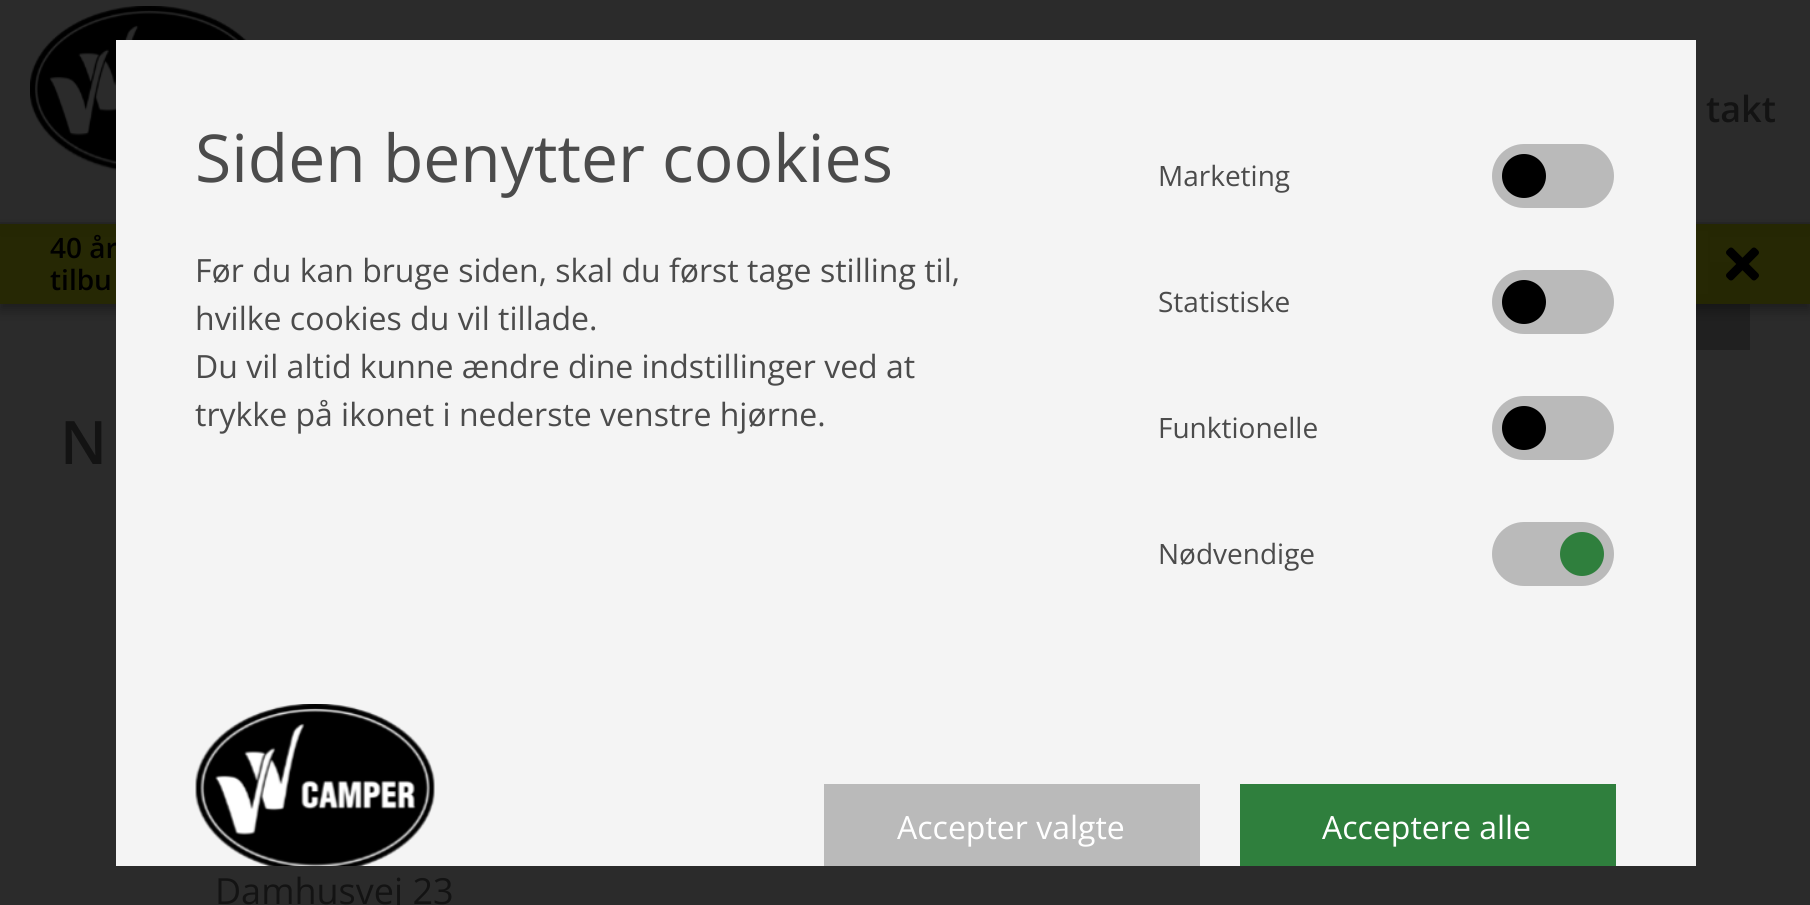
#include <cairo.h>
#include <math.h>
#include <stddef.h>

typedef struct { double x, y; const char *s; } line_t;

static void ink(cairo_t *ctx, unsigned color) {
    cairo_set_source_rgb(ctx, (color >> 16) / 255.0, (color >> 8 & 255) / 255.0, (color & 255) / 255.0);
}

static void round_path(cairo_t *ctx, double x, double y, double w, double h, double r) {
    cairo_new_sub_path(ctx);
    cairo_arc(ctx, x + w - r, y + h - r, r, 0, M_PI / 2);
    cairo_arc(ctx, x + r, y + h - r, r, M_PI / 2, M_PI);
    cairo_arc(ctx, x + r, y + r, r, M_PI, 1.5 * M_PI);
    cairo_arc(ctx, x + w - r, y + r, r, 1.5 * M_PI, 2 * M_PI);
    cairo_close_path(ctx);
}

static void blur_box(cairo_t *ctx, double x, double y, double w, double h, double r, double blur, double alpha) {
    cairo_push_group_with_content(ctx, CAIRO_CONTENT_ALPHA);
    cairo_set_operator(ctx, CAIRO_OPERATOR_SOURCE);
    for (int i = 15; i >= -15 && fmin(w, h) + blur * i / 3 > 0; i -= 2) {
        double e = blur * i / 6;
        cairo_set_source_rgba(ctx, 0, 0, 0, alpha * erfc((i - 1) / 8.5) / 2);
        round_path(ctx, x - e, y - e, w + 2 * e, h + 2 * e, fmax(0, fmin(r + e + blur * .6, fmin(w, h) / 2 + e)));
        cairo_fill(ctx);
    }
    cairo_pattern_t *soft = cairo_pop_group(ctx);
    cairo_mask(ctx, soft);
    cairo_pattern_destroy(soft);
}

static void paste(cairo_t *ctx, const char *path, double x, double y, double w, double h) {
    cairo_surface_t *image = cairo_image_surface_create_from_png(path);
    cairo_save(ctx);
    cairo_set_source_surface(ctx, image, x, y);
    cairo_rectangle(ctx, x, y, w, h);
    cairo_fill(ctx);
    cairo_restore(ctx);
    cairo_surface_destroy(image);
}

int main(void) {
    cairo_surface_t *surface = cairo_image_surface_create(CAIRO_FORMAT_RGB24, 1810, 905);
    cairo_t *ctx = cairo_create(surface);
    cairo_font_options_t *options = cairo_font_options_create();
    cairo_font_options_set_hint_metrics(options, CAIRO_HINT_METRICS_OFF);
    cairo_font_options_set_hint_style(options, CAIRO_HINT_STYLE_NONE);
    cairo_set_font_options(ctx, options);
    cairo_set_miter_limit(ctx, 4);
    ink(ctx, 0x2B2B2B);
    cairo_paint(ctx);
    cairo_save(ctx);
    cairo_rectangle(ctx, 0, 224, 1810, 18);
    cairo_clip(ctx);
    ink(ctx, 0x000000);
    blur_box(ctx, 0, 6, 1810, 224, 0, 6, 0.75);
    cairo_restore(ctx);
    ink(ctx, 0x262626);
    cairo_rectangle(ctx, 0, 222, 1810, 2);
    cairo_fill(ctx);
    paste(ctx, "media/1.png", 30, 6, 217, 165);
    cairo_select_font_face(ctx, "Open Sans SemiBold", CAIRO_FONT_SLANT_NORMAL, CAIRO_FONT_WEIGHT_NORMAL);
    cairo_set_font_size(ctx, 36);
    ink(ctx, 0x131313);
    cairo_move_to(ctx, 1706, 122);
    cairo_show_text(ctx, "takt");
    ink(ctx, 0x202020);
    cairo_rectangle(ctx, 1696, 262, 54, 88);
    cairo_fill(ctx);
    cairo_set_source_rgba(ctx, 0.169, 0.169, 0.169, 0.69);
    cairo_rectangle(ctx, 1696, 226, 12, 68);
    cairo_fill(ctx);
    cairo_rectangle(ctx, 1283, 225, 426, 70);
    ink(ctx, 0x131313);
    cairo_stroke(ctx);
    cairo_save(ctx);
    cairo_set_fill_rule(ctx, CAIRO_FILL_RULE_EVEN_ODD);
    cairo_new_path(ctx);
    cairo_move_to(ctx, 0, 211);
    cairo_line_to(ctx, 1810, 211);
    cairo_line_to(ctx, 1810, 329);
    cairo_line_to(ctx, 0, 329);
    cairo_close_path(ctx);
    cairo_move_to(ctx, 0, 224);
    cairo_line_to(ctx, 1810, 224);
    cairo_line_to(ctx, 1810, 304);
    cairo_line_to(ctx, 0, 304);
    cairo_close_path(ctx);
    cairo_clip(ctx);
    ink(ctx, 0x000000);
    blur_box(ctx, 0, 230, 1810, 80, 0, 6, 0.34);
    cairo_restore(ctx);
    cairo_set_source_rgba(ctx, 0.149, 0.157, 0.012, 0.96);
    cairo_rectangle(ctx, 0, 224, 1810, 80);
    cairo_fill(ctx);
    cairo_set_font_size(ctx, 28);
    ink(ctx, 0x000000);
    cairo_move_to(ctx, 50, 258);
    cairo_show_text(ctx, "40 år");
    cairo_move_to(ctx, 50, 290);
    cairo_show_text(ctx, "tilbu");
    paste(ctx, "media/2.png", 1726, 247, 33, 34);
    cairo_set_font_size(ctx, 60);
    ink(ctx, 0x131313);
    cairo_move_to(ctx, 60, 464);
    cairo_show_text(ctx, "N");
    ink(ctx, 0xF4F4F4);
    cairo_rectangle(ctx, 116, 40, 1580, 826);
    cairo_fill(ctx);
    cairo_select_font_face(ctx, "Open Sans", CAIRO_FONT_SLANT_NORMAL, CAIRO_FONT_WEIGHT_NORMAL);
    cairo_set_font_size(ctx, 66);
    ink(ctx, 0x4B4B4B);
    cairo_move_to(ctx, 195, 182);
    cairo_show_text(ctx, "Siden benytter cookies");
    cairo_set_font_size(ctx, 32);
    {
        static const line_t items[] = {
            {195, 282, "Før du kan bruge siden, skal du først tage stilling til,"},
            {195, 330, "hvilke cookies du vil tillade."},
            {195, 378, "Du vil altid kunne ændre dine indstillinger ved at"},
            {195, 426, "trykke på ikonet i nederste venstre hjørne."},
        };
        for (size_t i = 0; i < sizeof items / sizeof *items; i++) {
            cairo_move_to(ctx, items[i].x, items[i].y);
            cairo_show_text(ctx, items[i].s);
        }
    }
    cairo_set_font_size(ctx, 28);
    cairo_move_to(ctx, 1158, 186);
    cairo_show_text(ctx, "Marketing");
    ink(ctx, 0xBABABA);
    round_path(ctx, 1492, 144, 122, 64, 32);
    cairo_fill(ctx);
    ink(ctx, 0x000000);
    cairo_arc(ctx, 1524, 176, 22, 0, 2 * M_PI);
    cairo_fill(ctx);
    ink(ctx, 0x4B4B4B);
    cairo_move_to(ctx, 1158, 312);
    cairo_show_text(ctx, "Statistiske");
    ink(ctx, 0xBABABA);
    round_path(ctx, 1492, 270, 122, 64, 32);
    cairo_fill(ctx);
    ink(ctx, 0x000000);
    cairo_arc(ctx, 1524, 302, 22, 0, 2 * M_PI);
    cairo_fill(ctx);
    ink(ctx, 0x4B4B4B);
    cairo_move_to(ctx, 1158, 438);
    cairo_show_text(ctx, "Funktionelle");
    ink(ctx, 0xBABABA);
    round_path(ctx, 1492, 396, 122, 64, 32);
    cairo_fill(ctx);
    ink(ctx, 0x000000);
    cairo_arc(ctx, 1524, 428, 22, 0, 2 * M_PI);
    cairo_fill(ctx);
    ink(ctx, 0x4B4B4B);
    cairo_move_to(ctx, 1158, 564);
    cairo_show_text(ctx, "Nødvendige");
    ink(ctx, 0xBABABA);
    round_path(ctx, 1492, 522, 122, 64, 32);
    cairo_fill(ctx);
    ink(ctx, 0x2F7F3D);
    cairo_arc(ctx, 1582, 554, 22, 0, 2 * M_PI);
    cairo_fill(ctx);
    paste(ctx, "media/3.png", 195, 704, 240, 162);
    ink(ctx, 0xBABABA);
    cairo_rectangle(ctx, 824, 784, 376, 82);
    cairo_fill(ctx);
    cairo_set_font_size(ctx, 32);
    ink(ctx, 0xFFFFFF);
    cairo_move_to(ctx, 897, 839);
    cairo_show_text(ctx, "Accepter valgte");
    ink(ctx, 0x2F7F3D);
    cairo_rectangle(ctx, 1240, 784, 376, 82);
    cairo_fill(ctx);
    ink(ctx, 0xFFFFFF);
    cairo_move_to(ctx, 1322, 839);
    cairo_show_text(ctx, "Acceptere alle");
    cairo_set_font_size(ctx, 36);
    ink(ctx, 0x131313);
    cairo_move_to(ctx, 215, 904);
    cairo_show_text(ctx, "Damhusvej 23");
    cairo_surface_write_to_png(surface, "image.png");
    cairo_font_options_destroy(options);
    cairo_destroy(ctx);
    cairo_surface_destroy(surface);
    return 0;
}
